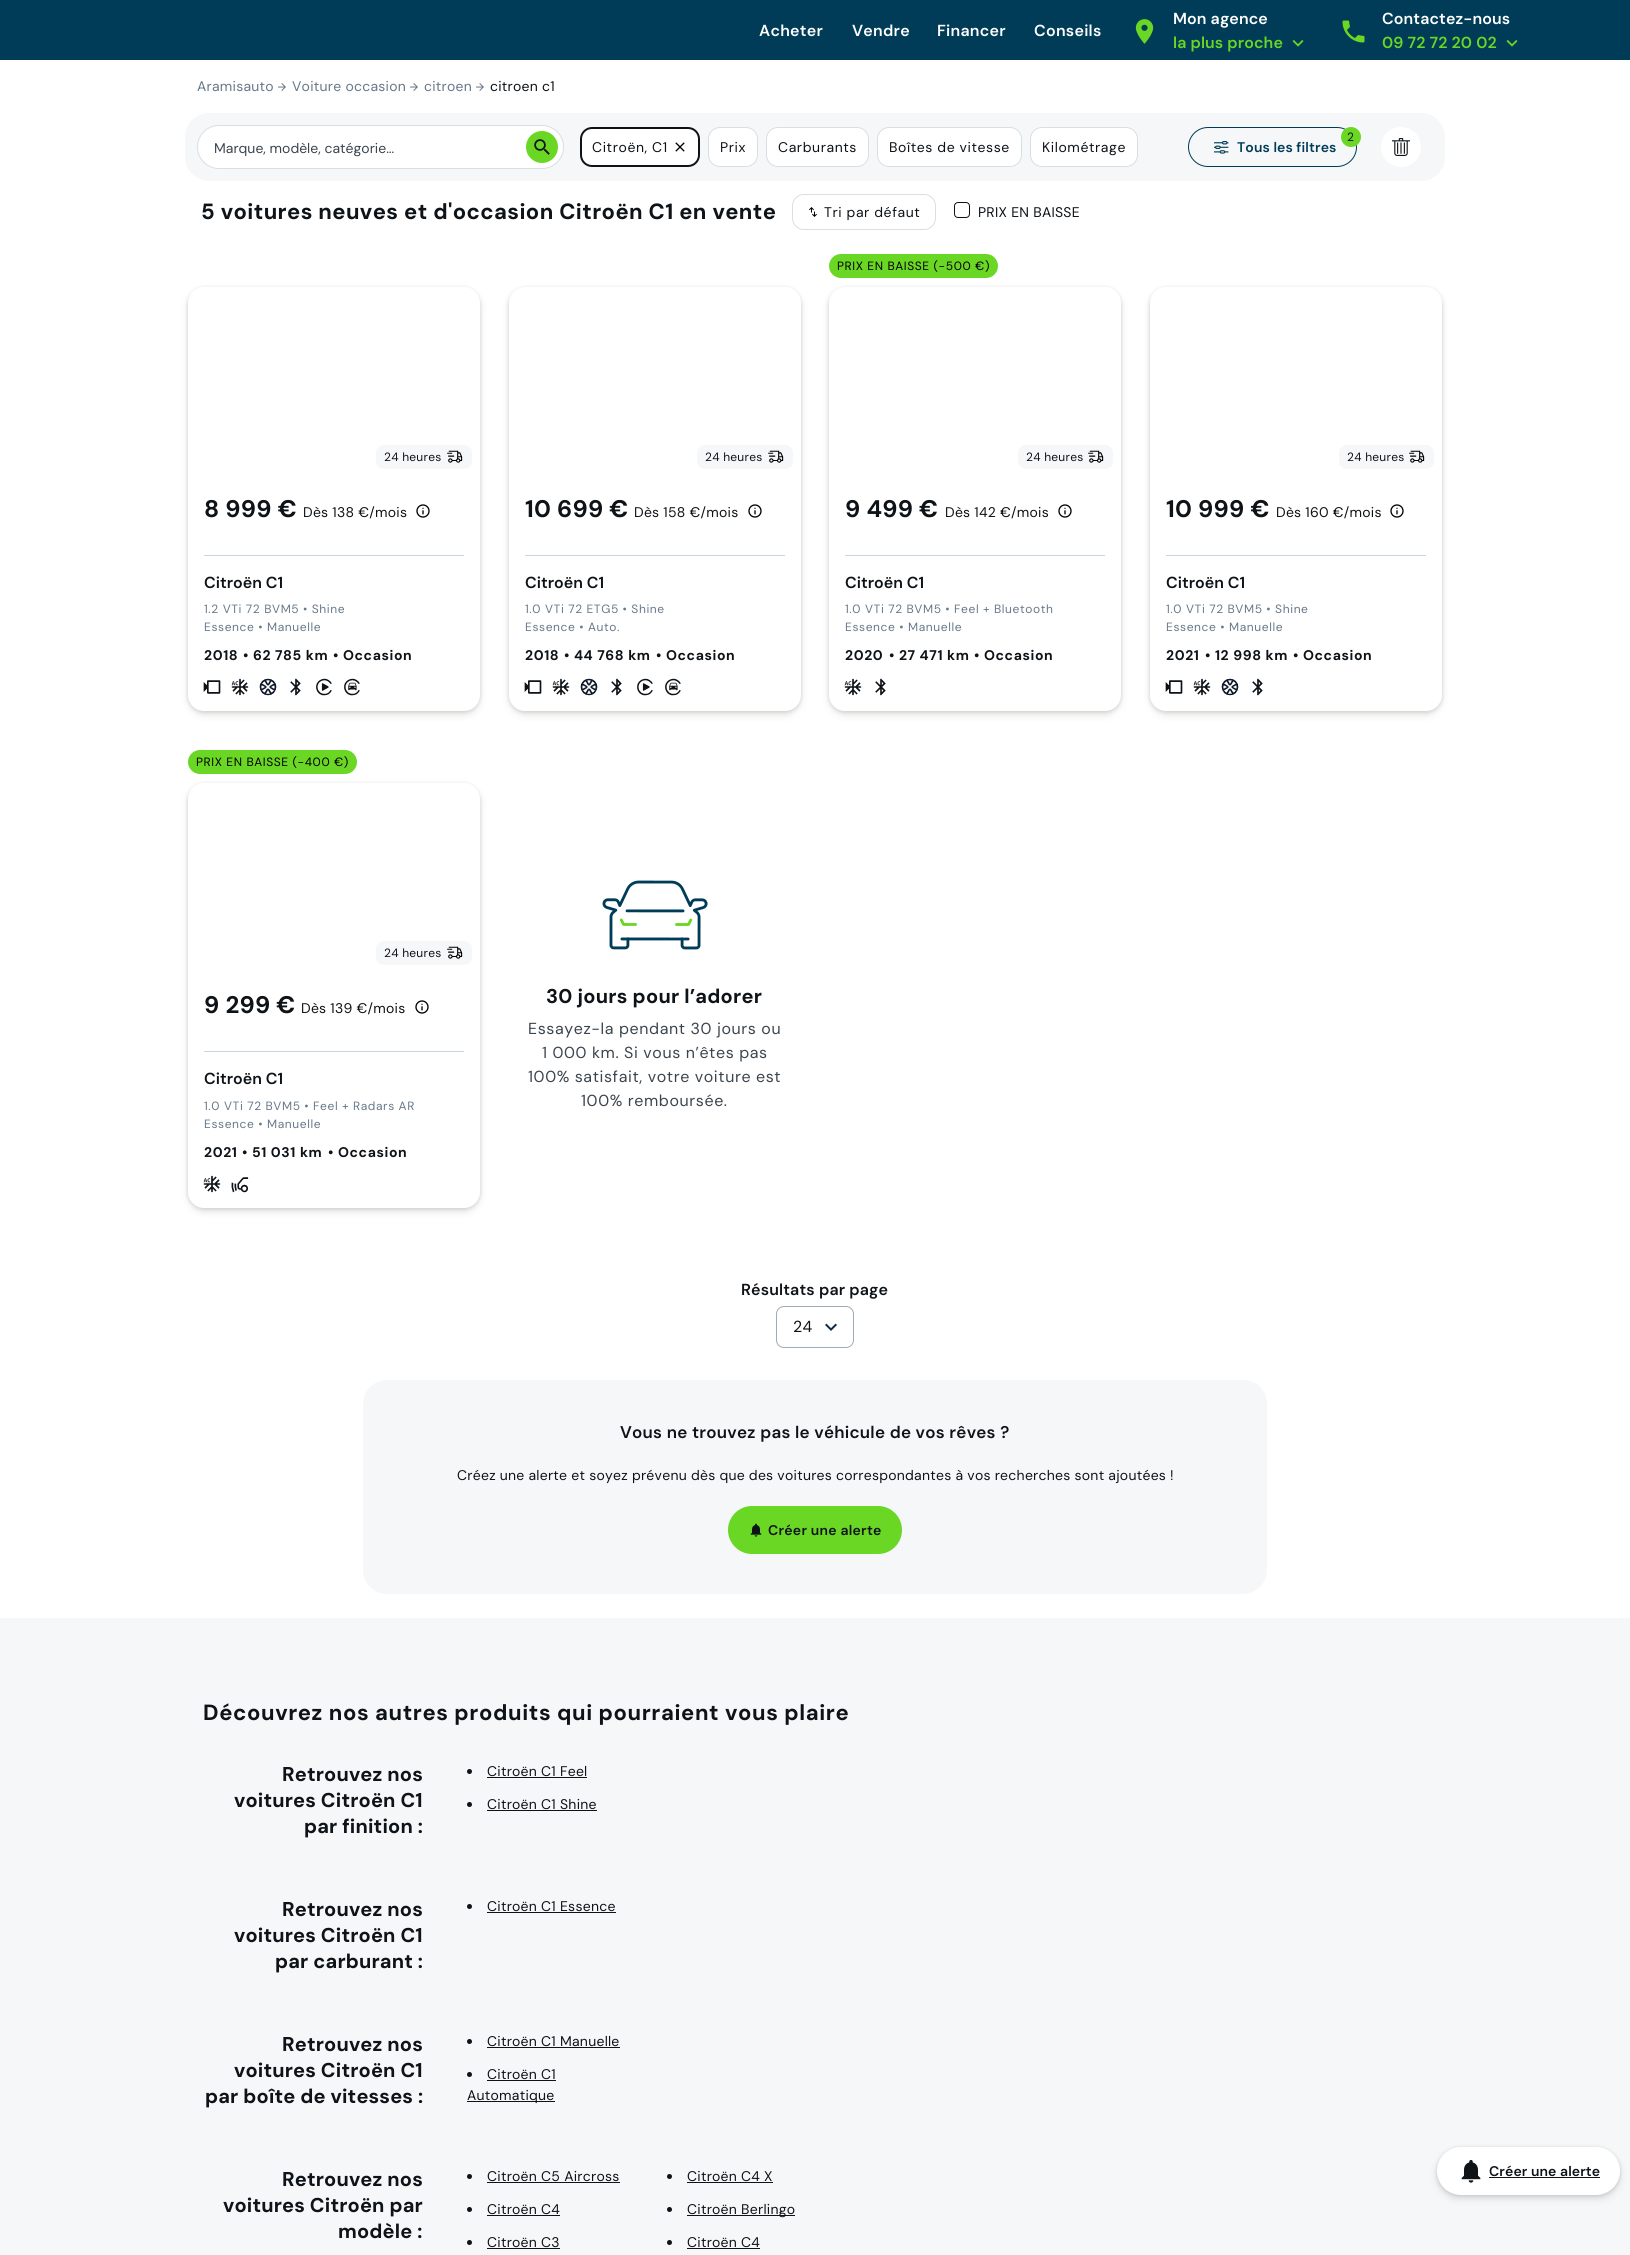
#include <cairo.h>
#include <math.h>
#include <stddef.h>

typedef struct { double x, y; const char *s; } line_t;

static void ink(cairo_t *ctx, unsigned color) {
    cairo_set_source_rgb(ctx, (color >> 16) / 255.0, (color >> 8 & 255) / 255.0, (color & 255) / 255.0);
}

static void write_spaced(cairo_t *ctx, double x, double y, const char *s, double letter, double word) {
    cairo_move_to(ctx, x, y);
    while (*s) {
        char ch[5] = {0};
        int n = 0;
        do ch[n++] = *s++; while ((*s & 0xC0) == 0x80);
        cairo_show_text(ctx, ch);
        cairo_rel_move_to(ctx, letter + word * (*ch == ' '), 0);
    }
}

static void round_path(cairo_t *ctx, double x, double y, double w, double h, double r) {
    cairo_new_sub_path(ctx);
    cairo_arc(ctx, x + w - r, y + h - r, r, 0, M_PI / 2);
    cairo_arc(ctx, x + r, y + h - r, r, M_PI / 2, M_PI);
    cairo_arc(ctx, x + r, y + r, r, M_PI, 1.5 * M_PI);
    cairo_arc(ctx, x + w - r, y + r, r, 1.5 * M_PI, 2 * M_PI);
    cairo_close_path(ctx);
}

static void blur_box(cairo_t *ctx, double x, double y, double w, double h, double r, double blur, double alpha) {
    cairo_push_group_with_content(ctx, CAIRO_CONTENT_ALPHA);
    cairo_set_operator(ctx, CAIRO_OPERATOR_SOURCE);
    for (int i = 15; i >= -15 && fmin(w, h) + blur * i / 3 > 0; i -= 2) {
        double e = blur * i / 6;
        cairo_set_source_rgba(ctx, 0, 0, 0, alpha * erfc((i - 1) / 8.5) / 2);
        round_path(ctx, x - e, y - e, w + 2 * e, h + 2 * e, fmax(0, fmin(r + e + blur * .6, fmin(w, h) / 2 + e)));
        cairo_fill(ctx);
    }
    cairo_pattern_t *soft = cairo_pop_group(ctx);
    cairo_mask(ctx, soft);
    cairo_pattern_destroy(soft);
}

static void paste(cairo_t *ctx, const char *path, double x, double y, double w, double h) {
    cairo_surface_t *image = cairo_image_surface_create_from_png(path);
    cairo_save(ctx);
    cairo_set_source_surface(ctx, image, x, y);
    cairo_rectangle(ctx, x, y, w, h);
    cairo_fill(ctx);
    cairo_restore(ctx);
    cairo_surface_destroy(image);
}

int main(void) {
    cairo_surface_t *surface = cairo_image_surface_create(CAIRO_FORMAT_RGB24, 1630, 2255);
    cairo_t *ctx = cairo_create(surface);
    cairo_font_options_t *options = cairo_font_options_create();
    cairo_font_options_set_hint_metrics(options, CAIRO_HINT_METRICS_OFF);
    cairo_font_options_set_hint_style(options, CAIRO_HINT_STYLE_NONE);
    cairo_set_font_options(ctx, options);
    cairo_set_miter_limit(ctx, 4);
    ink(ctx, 0xFFFFFF);
    cairo_paint(ctx);
    ink(ctx, 0x003C57);
    cairo_rectangle(ctx, 0, 0, 1630, 60);
    cairo_fill(ctx);
    cairo_select_font_face(ctx, "DM Sans SemiBold", CAIRO_FONT_SLANT_NORMAL, CAIRO_FONT_WEIGHT_NORMAL);
    cairo_set_font_size(ctx, 16);
    ink(ctx, 0xFFFFFF);
    {
        static const line_t items[] = {
            {759, 36, "Acheter"},
            {852, 36, "Vendre"},
            {937, 36, "Financer"},
            {1034, 36, "Conseils"},
        };
        for (size_t i = 0; i < sizeof items / sizeof *items; i++) {
            write_spaced(ctx, items[i].x, items[i].y, items[i].s, 0.25, 0);
        }
    }
    paste(ctx, "media/1.png", 1135, 19, 19, 25);
    write_spaced(ctx, 1173, 24, "Mon agence", 0.1, 0);
    ink(ctx, 0x6AD724);
    write_spaced(ctx, 1173, 48, "la plus proche", 0.1, 0);
    paste(ctx, "media/2.png", 1292, 40, 12, 7);
    paste(ctx, "media/3.png", 1342, 20, 23, 23);
    ink(ctx, 0xFFFFFF);
    write_spaced(ctx, 1382, 24, "Contactez-nous", 0.1, 0);
    ink(ctx, 0x6AD724);
    write_spaced(ctx, 1382, 48, "09 72 72 20 02", 0.1, 0);
    paste(ctx, "media/2.png", 1506, 40, 12, 7);
    cairo_select_font_face(ctx, "DM Sans", CAIRO_FONT_SLANT_NORMAL, CAIRO_FONT_WEIGHT_NORMAL);
    cairo_set_font_size(ctx, 14);
    ink(ctx, 0x677889);
    write_spaced(ctx, 197, 91, "Aramisauto", 0.25, 0);
    paste(ctx, "media/4.png", 278, 83, 8, 8);
    write_spaced(ctx, 292, 91, "Voiture occasion", 0.25, 0);
    paste(ctx, "media/4.png", 410, 83, 8, 8);
    write_spaced(ctx, 424, 91, "citroen", 0.25, 0);
    paste(ctx, "media/4.png", 476, 83, 8, 8);
    ink(ctx, 0x0E1318);
    write_spaced(ctx, 490, 91, "citroen c1", 0.25, 0);
    ink(ctx, 0xF6F7F8);
    round_path(ctx, 185, 113, 1260, 68, 24);
    cairo_fill(ctx);
    ink(ctx, 0xFFFFFF);
    round_path(ctx, 197.5, 125.5, 366, 43, 21.5);
    cairo_fill_preserve(ctx);
    ink(ctx, 0xD9DEE2);
    cairo_set_line_width(ctx, 1);
    cairo_stroke(ctx);
    ink(ctx, 0x3B454E);
    cairo_move_to(ctx, 214, 153);
    cairo_show_text(ctx, "Marque, modèle, catégorie…");
    ink(ctx, 0x6AD724);
    cairo_new_path(ctx);
    cairo_arc(ctx, 542, 147, 16, 0, 2 * M_PI);
    cairo_fill(ctx);
    paste(ctx, "media/5.png", 534, 139, 16, 16);
    ink(ctx, 0xFFFFFF);
    round_path(ctx, 581, 128, 118, 38, 11);
    cairo_fill_preserve(ctx);
    ink(ctx, 0x0E1318);
    cairo_set_line_width(ctx, 2);
    cairo_stroke(ctx);
    write_spaced(ctx, 592, 152, "Citroën, C1", 0.6, 0);
    paste(ctx, "media/6.png", 675, 142, 10, 10);
    ink(ctx, 0xFFFFFF);
    round_path(ctx, 708.5, 127.5, 49, 39, 11.5);
    cairo_fill_preserve(ctx);
    ink(ctx, 0xD9DEE2);
    cairo_set_line_width(ctx, 1);
    cairo_stroke(ctx);
    ink(ctx, 0x0E1318);
    write_spaced(ctx, 720, 152, "Prix", 0.6, 0);
    ink(ctx, 0xFFFFFF);
    round_path(ctx, 766.5, 127.5, 102, 39, 11.5);
    cairo_fill_preserve(ctx);
    ink(ctx, 0xD9DEE2);
    cairo_stroke(ctx);
    ink(ctx, 0x0E1318);
    write_spaced(ctx, 778, 152, "Carburants", 0.6, 0);
    ink(ctx, 0xFFFFFF);
    round_path(ctx, 877.5, 127.5, 144, 39, 11.5);
    cairo_fill_preserve(ctx);
    ink(ctx, 0xD9DEE2);
    cairo_stroke(ctx);
    ink(ctx, 0x0E1318);
    write_spaced(ctx, 889, 152, "Boîtes de vitesse", 0.6, 0);
    ink(ctx, 0xFFFFFF);
    round_path(ctx, 1030.5, 127.5, 107, 39, 11.5);
    cairo_fill_preserve(ctx);
    ink(ctx, 0xD9DEE2);
    cairo_stroke(ctx);
    ink(ctx, 0x0E1318);
    write_spaced(ctx, 1042, 152, "Kilométrage", 0.6, 0);
    round_path(ctx, 1188.5, 127.5, 168, 39, 19.5);
    ink(ctx, 0x003C57);
    cairo_stroke(ctx);
    ink(ctx, 0x6AD724);
    cairo_arc(ctx, 1351, 137, 10, 0, 2 * M_PI);
    cairo_fill(ctx);
    cairo_set_font_size(ctx, 12);
    ink(ctx, 0x0E1318);
    write_spaced(ctx, 1347, 141, "2", 0.25, 0);
    paste(ctx, "media/7.png", 1214, 141, 15, 13);
    cairo_select_font_face(ctx, "DM Sans SemiBold", CAIRO_FONT_SLANT_NORMAL, CAIRO_FONT_WEIGHT_NORMAL);
    cairo_set_font_size(ctx, 14);
    ink(ctx, 0x003C57);
    write_spaced(ctx, 1237, 152, "Tous les filtres", 0.1, 0);
    ink(ctx, 0xFFFFFF);
    cairo_new_path(ctx);
    cairo_arc(ctx, 1401, 147, 20, 0, 2 * M_PI);
    cairo_fill(ctx);
    paste(ctx, "media/8.png", 1392, 138, 18, 18);
    cairo_select_font_face(ctx, "DM Sans", CAIRO_FONT_SLANT_NORMAL, CAIRO_FONT_WEIGHT_BOLD);
    cairo_set_font_size(ctx, 22);
    ink(ctx, 0x0E1318);
    write_spaced(ctx, 201, 219, "5 voitures neuves et d'occasion Citroën C1 en vente", 0.4, 0);
    round_path(ctx, 792.5, 194.5, 143, 35, 11.5);
    ink(ctx, 0xD9DEE2);
    cairo_stroke(ctx);
    paste(ctx, "media/9.png", 809, 207, 8, 10);
    cairo_select_font_face(ctx, "DM Sans", CAIRO_FONT_SLANT_NORMAL, CAIRO_FONT_WEIGHT_NORMAL);
    cairo_set_font_size(ctx, 14);
    ink(ctx, 0x0E1318);
    write_spaced(ctx, 824, 217, "Tri par défaut", 0.6, 0);
    round_path(ctx, 954.5, 202.5, 15, 15, 3.5);
    cairo_stroke(ctx);
    write_spaced(ctx, 978, 217, "PRIX EN BAISSE", 0.25, 0);
    ink(ctx, 0x252A1D);
    blur_box(ctx, 188, 291, 292, 424, 16, 4, 0.12);
    blur_box(ctx, 188, 288, 292, 424, 16, 2, 0.16);
    ink(ctx, 0xFFFFFF);
    round_path(ctx, 188, 287, 292, 424, 16);
    cairo_fill(ctx);
    ink(ctx, 0xF6F7F8);
    round_path(ctx, 376, 445, 96, 24, 8);
    cairo_fill(ctx);
    cairo_set_font_size(ctx, 12);
    ink(ctx, 0x0E1318);
    write_spaced(ctx, 384, 461, "24 heures", 0.25, 0);
    paste(ctx, "media/10.png", 447, 450, 16, 13);
    cairo_select_font_face(ctx, "DM Sans", CAIRO_FONT_SLANT_NORMAL, CAIRO_FONT_WEIGHT_BOLD);
    cairo_set_font_size(ctx, 24);
    write_spaced(ctx, 204, 517, "8 999 €", 0.25, 0);
    cairo_select_font_face(ctx, "DM Sans", CAIRO_FONT_SLANT_NORMAL, CAIRO_FONT_WEIGHT_NORMAL);
    cairo_set_font_size(ctx, 14);
    write_spaced(ctx, 303, 517, "Dès 138 €/mois", 0.25, 0);
    paste(ctx, "media/11.png", 416, 504, 14, 14);
    ink(ctx, 0xCBD5E1);
    cairo_rectangle(ctx, 204, 555, 260, 1);
    cairo_fill(ctx);
    cairo_select_font_face(ctx, "DM Sans SemiBold", CAIRO_FONT_SLANT_NORMAL, CAIRO_FONT_WEIGHT_NORMAL);
    cairo_set_font_size(ctx, 16);
    ink(ctx, 0x0E1318);
    cairo_move_to(ctx, 204, 588);
    cairo_show_text(ctx, "Citroën C1");
    cairo_select_font_face(ctx, "DM Sans", CAIRO_FONT_SLANT_NORMAL, CAIRO_FONT_WEIGHT_NORMAL);
    cairo_set_font_size(ctx, 12);
    ink(ctx, 0x677889);
    write_spaced(ctx, 204, 613, "1.2 VTi 72 BVM5 • Shine", 0.6, 0);
    write_spaced(ctx, 204, 631, "Essence • Manuelle", 0.6, 0);
    cairo_select_font_face(ctx, "DM Sans", CAIRO_FONT_SLANT_NORMAL, CAIRO_FONT_WEIGHT_BOLD);
    cairo_set_font_size(ctx, 14);
    ink(ctx, 0x0E1318);
    {
        static const line_t items[] = {
            {204, 660, "2018"},
            {243, 660, "• 62 785 km"},
            {333, 660, "• Occasion"},
        };
        for (size_t i = 0; i < sizeof items / sizeof *items; i++) {
            write_spaced(ctx, items[i].x, items[i].y, items[i].s, 0.6, 0);
        }
    }
    paste(ctx, "media/12.png", 203, 680, 18, 14);
    paste(ctx, "media/13.png", 231, 678, 18, 18);
    paste(ctx, "media/14.png", 259, 678, 18, 18);
    paste(ctx, "media/15.png", 290, 678, 11, 18);
    paste(ctx, "media/16.png", 316, 678, 16, 18);
    paste(ctx, "media/17.png", 344, 678, 16, 18);
    ink(ctx, 0x252A1D);
    blur_box(ctx, 509, 291, 292, 424, 16, 4, 0.12);
    blur_box(ctx, 509, 288, 292, 424, 16, 2, 0.16);
    ink(ctx, 0xFFFFFF);
    round_path(ctx, 509, 287, 292, 424, 16);
    cairo_fill(ctx);
    ink(ctx, 0xF6F7F8);
    round_path(ctx, 697, 445, 96, 24, 8);
    cairo_fill(ctx);
    cairo_select_font_face(ctx, "DM Sans", CAIRO_FONT_SLANT_NORMAL, CAIRO_FONT_WEIGHT_NORMAL);
    cairo_set_font_size(ctx, 12);
    ink(ctx, 0x0E1318);
    write_spaced(ctx, 705, 461, "24 heures", 0.25, 0);
    paste(ctx, "media/10.png", 768, 450, 16, 13);
    cairo_select_font_face(ctx, "DM Sans", CAIRO_FONT_SLANT_NORMAL, CAIRO_FONT_WEIGHT_BOLD);
    cairo_set_font_size(ctx, 24);
    write_spaced(ctx, 525, 517, "10 699 €", 0.25, 0);
    cairo_select_font_face(ctx, "DM Sans", CAIRO_FONT_SLANT_NORMAL, CAIRO_FONT_WEIGHT_NORMAL);
    cairo_set_font_size(ctx, 14);
    write_spaced(ctx, 634, 517, "Dès 158 €/mois", 0.25, 0);
    paste(ctx, "media/11.png", 748, 504, 14, 14);
    ink(ctx, 0xCBD5E1);
    cairo_rectangle(ctx, 525, 555, 260, 1);
    cairo_fill(ctx);
    cairo_select_font_face(ctx, "DM Sans SemiBold", CAIRO_FONT_SLANT_NORMAL, CAIRO_FONT_WEIGHT_NORMAL);
    cairo_set_font_size(ctx, 16);
    ink(ctx, 0x0E1318);
    cairo_move_to(ctx, 525, 588);
    cairo_show_text(ctx, "Citroën C1");
    cairo_select_font_face(ctx, "DM Sans", CAIRO_FONT_SLANT_NORMAL, CAIRO_FONT_WEIGHT_NORMAL);
    cairo_set_font_size(ctx, 12);
    ink(ctx, 0x677889);
    write_spaced(ctx, 525, 613, "1.0 VTi 72 ETG5 • Shine", 0.6, 0);
    write_spaced(ctx, 525, 631, "Essence • Auto.", 0.6, 0);
    cairo_select_font_face(ctx, "DM Sans", CAIRO_FONT_SLANT_NORMAL, CAIRO_FONT_WEIGHT_BOLD);
    cairo_set_font_size(ctx, 14);
    ink(ctx, 0x0E1318);
    {
        static const line_t items[] = {
            {525, 660, "2018"},
            {564, 660, "• 44 768 km"},
            {656, 660, "• Occasion"},
        };
        for (size_t i = 0; i < sizeof items / sizeof *items; i++) {
            write_spaced(ctx, items[i].x, items[i].y, items[i].s, 0.6, 0);
        }
    }
    paste(ctx, "media/12.png", 524, 680, 18, 14);
    paste(ctx, "media/13.png", 552, 678, 18, 18);
    paste(ctx, "media/18.png", 580, 678, 18, 18);
    paste(ctx, "media/15.png", 611, 678, 11, 18);
    paste(ctx, "media/16.png", 637, 678, 16, 18);
    paste(ctx, "media/17.png", 665, 678, 16, 18);
    ink(ctx, 0x6AD724);
    round_path(ctx, 829, 254, 169, 24, 12);
    cairo_fill(ctx);
    cairo_select_font_face(ctx, "DM Sans", CAIRO_FONT_SLANT_NORMAL, CAIRO_FONT_WEIGHT_NORMAL);
    cairo_set_font_size(ctx, 12);
    ink(ctx, 0x000000);
    write_spaced(ctx, 837, 270, "PRIX EN BAISSE (-500 €)", 0.6, 0);
    ink(ctx, 0x252A1D);
    blur_box(ctx, 829, 291, 292, 424, 16, 4, 0.12);
    blur_box(ctx, 829, 288, 292, 424, 16, 2, 0.16);
    ink(ctx, 0xFFFFFF);
    round_path(ctx, 829, 287, 292, 424, 16);
    cairo_fill(ctx);
    ink(ctx, 0xF6F7F8);
    round_path(ctx, 1018, 445, 95, 24, 8);
    cairo_fill(ctx);
    ink(ctx, 0x0E1318);
    write_spaced(ctx, 1026, 461, "24 heures", 0.25, 0);
    paste(ctx, "media/10.png", 1088, 450, 16, 13);
    cairo_select_font_face(ctx, "DM Sans", CAIRO_FONT_SLANT_NORMAL, CAIRO_FONT_WEIGHT_BOLD);
    cairo_set_font_size(ctx, 24);
    write_spaced(ctx, 845, 517, "9 499 €", 0.25, 0);
    cairo_select_font_face(ctx, "DM Sans", CAIRO_FONT_SLANT_NORMAL, CAIRO_FONT_WEIGHT_NORMAL);
    cairo_set_font_size(ctx, 14);
    write_spaced(ctx, 945, 517, "Dès 142 €/mois", 0.25, 0);
    paste(ctx, "media/11.png", 1058, 504, 14, 14);
    ink(ctx, 0xCBD5E1);
    cairo_rectangle(ctx, 845, 555, 260, 1);
    cairo_fill(ctx);
    cairo_select_font_face(ctx, "DM Sans SemiBold", CAIRO_FONT_SLANT_NORMAL, CAIRO_FONT_WEIGHT_NORMAL);
    cairo_set_font_size(ctx, 16);
    ink(ctx, 0x0E1318);
    cairo_move_to(ctx, 845, 588);
    cairo_show_text(ctx, "Citroën C1");
    cairo_select_font_face(ctx, "DM Sans", CAIRO_FONT_SLANT_NORMAL, CAIRO_FONT_WEIGHT_NORMAL);
    cairo_set_font_size(ctx, 12);
    ink(ctx, 0x677889);
    write_spaced(ctx, 845, 613, "1.0 VTi 72 BVM5 • Feel + Bluetooth", 0.6, 0);
    write_spaced(ctx, 845, 631, "Essence • Manuelle", 0.6, 0);
    cairo_select_font_face(ctx, "DM Sans", CAIRO_FONT_SLANT_NORMAL, CAIRO_FONT_WEIGHT_BOLD);
    cairo_set_font_size(ctx, 14);
    ink(ctx, 0x0E1318);
    {
        static const line_t items[] = {
            {845, 660, "2020"},
            {889, 660, "• 27 471 km"},
            {974, 660, "• Occasion"},
        };
        for (size_t i = 0; i < sizeof items / sizeof *items; i++) {
            write_spaced(ctx, items[i].x, items[i].y, items[i].s, 0.6, 0);
        }
    }
    paste(ctx, "media/13.png", 844, 678, 18, 18);
    paste(ctx, "media/15.png", 875, 678, 11, 18);
    ink(ctx, 0x252A1D);
    blur_box(ctx, 1150, 291, 292, 424, 16, 4, 0.12);
    blur_box(ctx, 1150, 288, 292, 424, 16, 2, 0.16);
    ink(ctx, 0xFFFFFF);
    round_path(ctx, 1150, 287, 292, 424, 16);
    cairo_fill(ctx);
    ink(ctx, 0xF6F7F8);
    round_path(ctx, 1339, 445, 95, 24, 8);
    cairo_fill(ctx);
    cairo_select_font_face(ctx, "DM Sans", CAIRO_FONT_SLANT_NORMAL, CAIRO_FONT_WEIGHT_NORMAL);
    cairo_set_font_size(ctx, 12);
    ink(ctx, 0x0E1318);
    write_spaced(ctx, 1347, 461, "24 heures", 0.25, 0);
    paste(ctx, "media/10.png", 1409, 450, 16, 13);
    cairo_select_font_face(ctx, "DM Sans", CAIRO_FONT_SLANT_NORMAL, CAIRO_FONT_WEIGHT_BOLD);
    cairo_set_font_size(ctx, 24);
    write_spaced(ctx, 1166, 517, "10 999 €", 0.25, 0);
    cairo_select_font_face(ctx, "DM Sans", CAIRO_FONT_SLANT_NORMAL, CAIRO_FONT_WEIGHT_NORMAL);
    cairo_set_font_size(ctx, 14);
    write_spaced(ctx, 1276, 517, "Dès 160 €/mois", 0.25, 0);
    paste(ctx, "media/11.png", 1390, 504, 14, 14);
    ink(ctx, 0xCBD5E1);
    cairo_rectangle(ctx, 1166, 555, 260, 1);
    cairo_fill(ctx);
    cairo_select_font_face(ctx, "DM Sans SemiBold", CAIRO_FONT_SLANT_NORMAL, CAIRO_FONT_WEIGHT_NORMAL);
    cairo_set_font_size(ctx, 16);
    ink(ctx, 0x0E1318);
    cairo_move_to(ctx, 1166, 588);
    cairo_show_text(ctx, "Citroën C1");
    cairo_select_font_face(ctx, "DM Sans", CAIRO_FONT_SLANT_NORMAL, CAIRO_FONT_WEIGHT_NORMAL);
    cairo_set_font_size(ctx, 12);
    ink(ctx, 0x677889);
    write_spaced(ctx, 1166, 613, "1.0 VTi 72 BVM5 • Shine", 0.6, 0);
    write_spaced(ctx, 1166, 631, "Essence • Manuelle", 0.6, 0);
    cairo_select_font_face(ctx, "DM Sans", CAIRO_FONT_SLANT_NORMAL, CAIRO_FONT_WEIGHT_BOLD);
    cairo_set_font_size(ctx, 14);
    ink(ctx, 0x0E1318);
    {
        static const line_t items[] = {
            {1166, 660, "2021"},
            {1205, 660, "• 12 998 km"},
            {1293, 660, "• Occasion"},
        };
        for (size_t i = 0; i < sizeof items / sizeof *items; i++) {
            write_spaced(ctx, items[i].x, items[i].y, items[i].s, 0.6, 0);
        }
    }
    paste(ctx, "media/12.png", 1165, 680, 18, 14);
    paste(ctx, "media/13.png", 1193, 678, 18, 18);
    paste(ctx, "media/18.png", 1221, 678, 18, 18);
    paste(ctx, "media/15.png", 1252, 678, 11, 18);
    ink(ctx, 0x6AD724);
    round_path(ctx, 188, 750, 169, 24, 12);
    cairo_fill(ctx);
    cairo_select_font_face(ctx, "DM Sans", CAIRO_FONT_SLANT_NORMAL, CAIRO_FONT_WEIGHT_NORMAL);
    cairo_set_font_size(ctx, 12);
    ink(ctx, 0x000000);
    write_spaced(ctx, 196, 766, "PRIX EN BAISSE (-400 €)", 0.6, 0);
    ink(ctx, 0x252A1D);
    blur_box(ctx, 188, 787, 292, 425, 16, 4, 0.12);
    blur_box(ctx, 188, 784, 292, 425, 16, 2, 0.16);
    ink(ctx, 0xFFFFFF);
    round_path(ctx, 188, 783, 292, 425, 16);
    cairo_fill(ctx);
    ink(ctx, 0xF6F7F8);
    round_path(ctx, 376, 941, 96, 24, 8);
    cairo_fill(ctx);
    ink(ctx, 0x0E1318);
    write_spaced(ctx, 384, 957, "24 heures", 0.25, 0);
    paste(ctx, "media/10.png", 447, 946, 16, 13);
    cairo_select_font_face(ctx, "DM Sans", CAIRO_FONT_SLANT_NORMAL, CAIRO_FONT_WEIGHT_BOLD);
    cairo_set_font_size(ctx, 24);
    write_spaced(ctx, 204, 1013, "9 299 €", 0.25, 0);
    cairo_select_font_face(ctx, "DM Sans", CAIRO_FONT_SLANT_NORMAL, CAIRO_FONT_WEIGHT_NORMAL);
    cairo_set_font_size(ctx, 14);
    write_spaced(ctx, 301, 1013, "Dès 139 €/mois", 0.25, 0);
    paste(ctx, "media/11.png", 415, 1000, 14, 14);
    ink(ctx, 0xCBD5E1);
    cairo_rectangle(ctx, 204, 1051, 260, 1);
    cairo_fill(ctx);
    cairo_select_font_face(ctx, "DM Sans SemiBold", CAIRO_FONT_SLANT_NORMAL, CAIRO_FONT_WEIGHT_NORMAL);
    cairo_set_font_size(ctx, 16);
    ink(ctx, 0x0E1318);
    cairo_move_to(ctx, 204, 1084);
    cairo_show_text(ctx, "Citroën C1");
    cairo_select_font_face(ctx, "DM Sans", CAIRO_FONT_SLANT_NORMAL, CAIRO_FONT_WEIGHT_NORMAL);
    cairo_set_font_size(ctx, 12);
    ink(ctx, 0x677889);
    write_spaced(ctx, 204, 1110, "1.0 VTi 72 BVM5 • Feel + Radars AR", 0.6, 0);
    write_spaced(ctx, 204, 1128, "Essence • Manuelle", 0.6, 0);
    cairo_select_font_face(ctx, "DM Sans", CAIRO_FONT_SLANT_NORMAL, CAIRO_FONT_WEIGHT_BOLD);
    cairo_set_font_size(ctx, 14);
    ink(ctx, 0x0E1318);
    {
        static const line_t items[] = {
            {204, 1157, "2021"},
            {242, 1157, "• 51 031 km"},
            {328, 1157, "• Occasion"},
        };
        for (size_t i = 0; i < sizeof items / sizeof *items; i++) {
            write_spaced(ctx, items[i].x, items[i].y, items[i].s, 0.6, 0);
        }
    }
    paste(ctx, "media/13.png", 203, 1175, 18, 18);
    paste(ctx, "media/19.png", 231, 1177, 18, 16);
    paste(ctx, "media/20.png", 602, 880, 106, 70);
    cairo_set_font_size(ctx, 20);
    write_spaced(ctx, 546, 1003, "30 jours pour l’adorer", 0.25, 0);
    cairo_select_font_face(ctx, "DM Sans", CAIRO_FONT_SLANT_NORMAL, CAIRO_FONT_WEIGHT_NORMAL);
    cairo_set_font_size(ctx, 16);
    ink(ctx, 0x3B454E);
    {
        static const line_t items[] = {
            {528, 1034, "Essayez-la pendant 30 jours ou"},
            {542, 1058, "1 000 km. Si vous n’êtes pas"},
            {528, 1082, "100% satisfait, votre voiture est"},
            {581, 1106, "100% remboursée."},
        };
        for (size_t i = 0; i < sizeof items / sizeof *items; i++) {
            write_spaced(ctx, items[i].x, items[i].y, items[i].s, 0.6, 0);
        }
    }
    cairo_select_font_face(ctx, "DM Sans SemiBold", CAIRO_FONT_SLANT_NORMAL, CAIRO_FONT_WEIGHT_NORMAL);
    ink(ctx, 0x0E1318);
    write_spaced(ctx, 741, 1295, "Résultats par page", 0.15, 0);
    paste(ctx, "media/21.png", 825, 1323, 12, 8);
    round_path(ctx, 776.5, 1306.5, 77, 41, 7.5);
    ink(ctx, 0x9FABB7);
    cairo_stroke(ctx);
    cairo_select_font_face(ctx, "DM Sans", CAIRO_FONT_SLANT_NORMAL, CAIRO_FONT_WEIGHT_NORMAL);
    ink(ctx, 0x0E1318);
    write_spaced(ctx, 793, 1332, "24", 0.25, 0);
    ink(ctx, 0xF6F7F8);
    round_path(ctx, 363, 1380, 904, 214, 24);
    cairo_fill(ctx);
    cairo_select_font_face(ctx, "DM Sans SemiBold", CAIRO_FONT_SLANT_NORMAL, CAIRO_FONT_WEIGHT_NORMAL);
    cairo_set_font_size(ctx, 17);
    ink(ctx, 0x0E1318);
    write_spaced(ctx, 620, 1438, "Vous ne trouvez pas le véhicule de vos rêves ?", 0.25, 0);
    cairo_select_font_face(ctx, "DM Sans", CAIRO_FONT_SLANT_NORMAL, CAIRO_FONT_WEIGHT_NORMAL);
    cairo_set_font_size(ctx, 14);
    write_spaced(ctx, 457, 1480, "Créez une alerte et soyez prévenu dès que des voitures correspondantes à vos recherches sont ajoutées !", 0.25, 0);
    ink(ctx, 0x6AD724);
    round_path(ctx, 728, 1506, 174, 48, 24);
    cairo_fill(ctx);
    paste(ctx, "media/22.png", 750, 1523, 12, 14);
    cairo_select_font_face(ctx, "DM Sans SemiBold", CAIRO_FONT_SLANT_NORMAL, CAIRO_FONT_WEIGHT_NORMAL);
    ink(ctx, 0x0E1318);
    write_spaced(ctx, 768, 1535, "Créer une alerte", 0.25, 0);
    ink(ctx, 0xF6F7F8);
    cairo_rectangle(ctx, 0, 1618, 1630, 637);
    cairo_fill(ctx);
    cairo_select_font_face(ctx, "DM Sans", CAIRO_FONT_SLANT_NORMAL, CAIRO_FONT_WEIGHT_BOLD);
    cairo_set_font_size(ctx, 22);
    ink(ctx, 0x0E1318);
    write_spaced(ctx, 203, 1720, "Découvrez nos autres produits qui pourraient vous plaire", 0.6, 0);
    cairo_set_font_size(ctx, 20);
    {
        static const line_t items[] = {
            {282, 1781, "Retrouvez nos"},
            {234, 1807, "voitures Citroën C1"},
            {304, 1833, "par finition :"},
        };
        for (size_t i = 0; i < sizeof items / sizeof *items; i++) {
            write_spaced(ctx, items[i].x, items[i].y, items[i].s, 0.15, 0);
        }
    }
    cairo_new_path(ctx);
    cairo_arc(ctx, 469.5, 1771.5, 2.5, 0, 2 * M_PI);
    cairo_fill(ctx);
    cairo_select_font_face(ctx, "DM Sans", CAIRO_FONT_SLANT_NORMAL, CAIRO_FONT_WEIGHT_NORMAL);
    cairo_set_font_size(ctx, 14);
    write_spaced(ctx, 487, 1776, "Citroën C1 Feel", 0.25, 0);
    cairo_rectangle(ctx, 487, 1777, 100, 1);
    cairo_fill(ctx);
    cairo_arc(ctx, 469.5, 1804.5, 2.5, 0, 2 * M_PI);
    cairo_fill(ctx);
    write_spaced(ctx, 487, 1809, "Citroën C1 Shine", 0.25, 0);
    cairo_rectangle(ctx, 487, 1810, 110, 1);
    cairo_fill(ctx);
    cairo_select_font_face(ctx, "DM Sans", CAIRO_FONT_SLANT_NORMAL, CAIRO_FONT_WEIGHT_BOLD);
    cairo_set_font_size(ctx, 20);
    {
        static const line_t items[] = {
            {282, 1916, "Retrouvez nos"},
            {234, 1942, "voitures Citroën C1"},
            {275, 1968, "par carburant :"},
        };
        for (size_t i = 0; i < sizeof items / sizeof *items; i++) {
            write_spaced(ctx, items[i].x, items[i].y, items[i].s, 0.15, 0);
        }
    }
    cairo_new_path(ctx);
    cairo_arc(ctx, 469.5, 1906.5, 2.5, 0, 2 * M_PI);
    cairo_fill(ctx);
    cairo_select_font_face(ctx, "DM Sans", CAIRO_FONT_SLANT_NORMAL, CAIRO_FONT_WEIGHT_NORMAL);
    cairo_set_font_size(ctx, 14);
    write_spaced(ctx, 487, 1911, "Citroën C1 Essence", 0.25, 0);
    cairo_rectangle(ctx, 487, 1912, 129, 1);
    cairo_fill(ctx);
    cairo_select_font_face(ctx, "DM Sans", CAIRO_FONT_SLANT_NORMAL, CAIRO_FONT_WEIGHT_BOLD);
    cairo_set_font_size(ctx, 20);
    {
        static const line_t items[] = {
            {282, 2051, "Retrouvez nos"},
            {234, 2077, "voitures Citroën C1"},
            {205, 2103, "par boîte de vitesses :"},
        };
        for (size_t i = 0; i < sizeof items / sizeof *items; i++) {
            write_spaced(ctx, items[i].x, items[i].y, items[i].s, 0.15, 0);
        }
    }
    cairo_new_path(ctx);
    cairo_arc(ctx, 469.5, 2041.5, 2.5, 0, 2 * M_PI);
    cairo_fill(ctx);
    cairo_select_font_face(ctx, "DM Sans", CAIRO_FONT_SLANT_NORMAL, CAIRO_FONT_WEIGHT_NORMAL);
    cairo_set_font_size(ctx, 14);
    write_spaced(ctx, 487, 2046, "Citroën C1 Manuelle", 0.25, 0);
    cairo_rectangle(ctx, 487, 2047, 133, 1);
    cairo_fill(ctx);
    cairo_arc(ctx, 469.5, 2074.5, 2.5, 0, 2 * M_PI);
    cairo_fill(ctx);
    write_spaced(ctx, 487, 2079, "Citroën C1", 0.25, 0);
    cairo_rectangle(ctx, 487, 2080, 69, 1);
    cairo_fill(ctx);
    cairo_rectangle(ctx, 467, 2101, 88, 1);
    cairo_fill(ctx);
    write_spaced(ctx, 467, 2100, "Automatique", 0.25, 0);
    cairo_select_font_face(ctx, "DM Sans", CAIRO_FONT_SLANT_NORMAL, CAIRO_FONT_WEIGHT_BOLD);
    cairo_set_font_size(ctx, 20);
    {
        static const line_t items[] = {
            {282, 2186, "Retrouvez nos"},
            {223, 2212, "voitures Citroën par"},
            {338, 2238, "modèle :"},
        };
        for (size_t i = 0; i < sizeof items / sizeof *items; i++) {
            write_spaced(ctx, items[i].x, items[i].y, items[i].s, 0.15, 0);
        }
    }
    cairo_new_path(ctx);
    cairo_arc(ctx, 469.5, 2176.5, 2.5, 0, 2 * M_PI);
    cairo_fill(ctx);
    cairo_select_font_face(ctx, "DM Sans", CAIRO_FONT_SLANT_NORMAL, CAIRO_FONT_WEIGHT_NORMAL);
    cairo_set_font_size(ctx, 14);
    write_spaced(ctx, 487, 2181, "Citroën C5 Aircross", 0.25, 0);
    cairo_rectangle(ctx, 487, 2182, 133, 1);
    cairo_fill(ctx);
    cairo_arc(ctx, 469.5, 2209.5, 2.5, 0, 2 * M_PI);
    cairo_fill(ctx);
    write_spaced(ctx, 487, 2214, "Citroën C4", 0.25, 0);
    cairo_rectangle(ctx, 487, 2215, 73, 1);
    cairo_fill(ctx);
    cairo_arc(ctx, 469.5, 2242.5, 2.5, 0, 2 * M_PI);
    cairo_fill(ctx);
    write_spaced(ctx, 487, 2247, "Citroën C3", 0.25, 0);
    cairo_rectangle(ctx, 487, 2248, 73, 1);
    cairo_fill(ctx);
    cairo_arc(ctx, 669.5, 2176.5, 2.5, 0, 2 * M_PI);
    cairo_fill(ctx);
    write_spaced(ctx, 687, 2181, "Citroën C4 X", 0.25, 0);
    cairo_rectangle(ctx, 687, 2182, 86, 1);
    cairo_fill(ctx);
    cairo_arc(ctx, 669.5, 2209.5, 2.5, 0, 2 * M_PI);
    cairo_fill(ctx);
    cairo_rectangle(ctx, 687, 2215, 108, 1);
    cairo_fill(ctx);
    write_spaced(ctx, 687, 2214, "Citroën Berlingo", 0.25, 0);
    cairo_new_path(ctx);
    cairo_arc(ctx, 669.5, 2242.5, 2.5, 0, 2 * M_PI);
    cairo_fill(ctx);
    write_spaced(ctx, 687, 2247, "Citroën C4", 0.25, 0);
    cairo_rectangle(ctx, 687, 2248, 73, 1);
    cairo_fill(ctx);
    ink(ctx, 0x252A1D);
    blur_box(ctx, 1437, 2151, 183, 48, 24, 4, 0.12);
    blur_box(ctx, 1437, 2148, 183, 48, 24, 2, 0.16);
    ink(ctx, 0xFFFFFF);
    round_path(ctx, 1437, 2147, 183, 48, 24);
    cairo_fill(ctx);
    paste(ctx, "media/23.png", 1461, 2160, 20, 23);
    cairo_select_font_face(ctx, "DM Sans SemiBold", CAIRO_FONT_SLANT_NORMAL, CAIRO_FONT_WEIGHT_NORMAL);
    ink(ctx, 0x0E1318);
    write_spaced(ctx, 1489, 2176, "Créer une alerte", 0.1, 0);
    cairo_rectangle(ctx, 1489, 2177, 111, 1);
    cairo_fill(ctx);
    cairo_surface_write_to_png(surface, "image.png");
    cairo_font_options_destroy(options);
    cairo_destroy(ctx);
    cairo_surface_destroy(surface);
    return 0;
}
